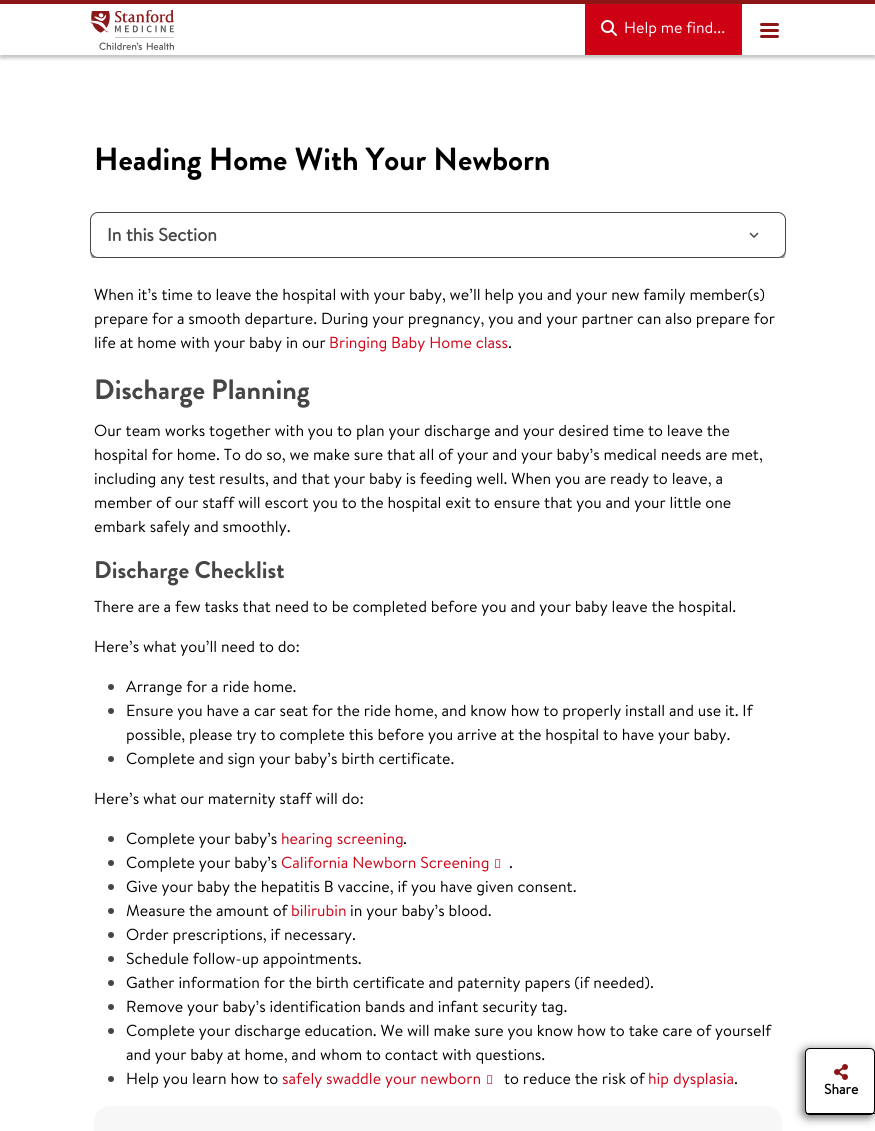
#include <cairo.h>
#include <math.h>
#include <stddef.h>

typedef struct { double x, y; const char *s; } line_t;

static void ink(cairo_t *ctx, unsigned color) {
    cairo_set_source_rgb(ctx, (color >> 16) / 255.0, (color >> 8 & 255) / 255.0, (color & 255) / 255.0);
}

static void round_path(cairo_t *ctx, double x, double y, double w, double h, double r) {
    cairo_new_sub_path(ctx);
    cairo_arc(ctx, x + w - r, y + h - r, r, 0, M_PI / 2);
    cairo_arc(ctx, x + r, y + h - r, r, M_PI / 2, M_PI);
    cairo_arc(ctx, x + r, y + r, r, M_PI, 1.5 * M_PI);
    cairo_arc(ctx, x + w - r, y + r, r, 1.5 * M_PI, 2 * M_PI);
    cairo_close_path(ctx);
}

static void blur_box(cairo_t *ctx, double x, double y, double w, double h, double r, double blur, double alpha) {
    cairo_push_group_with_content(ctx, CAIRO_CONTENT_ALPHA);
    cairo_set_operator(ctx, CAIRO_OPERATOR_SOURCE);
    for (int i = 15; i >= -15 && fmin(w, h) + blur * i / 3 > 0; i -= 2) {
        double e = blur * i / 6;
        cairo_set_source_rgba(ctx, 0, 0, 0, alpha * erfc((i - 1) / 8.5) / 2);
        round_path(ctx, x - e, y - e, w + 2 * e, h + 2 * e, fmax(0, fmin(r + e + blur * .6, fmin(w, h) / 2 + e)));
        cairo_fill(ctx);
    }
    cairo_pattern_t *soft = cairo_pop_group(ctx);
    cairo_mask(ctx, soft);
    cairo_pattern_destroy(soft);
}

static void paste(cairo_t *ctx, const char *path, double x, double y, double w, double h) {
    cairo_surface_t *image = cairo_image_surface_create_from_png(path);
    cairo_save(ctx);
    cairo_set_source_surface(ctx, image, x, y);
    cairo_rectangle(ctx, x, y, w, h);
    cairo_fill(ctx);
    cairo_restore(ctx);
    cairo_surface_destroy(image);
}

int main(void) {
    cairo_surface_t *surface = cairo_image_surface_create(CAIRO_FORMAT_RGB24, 875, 1131);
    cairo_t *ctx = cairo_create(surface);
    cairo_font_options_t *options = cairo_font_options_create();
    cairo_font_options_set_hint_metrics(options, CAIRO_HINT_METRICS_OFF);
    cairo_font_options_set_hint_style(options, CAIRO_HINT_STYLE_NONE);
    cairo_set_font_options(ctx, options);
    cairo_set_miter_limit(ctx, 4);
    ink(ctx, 0xFFFFFF);
    cairo_paint(ctx);
    cairo_save(ctx);
    cairo_rectangle(ctx, 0, 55, 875, 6);
    cairo_clip(ctx);
    ink(ctx, 0x000000);
    blur_box(ctx, 0, 3, 875, 55, 0, 2, 0.25);
    cairo_restore(ctx);
    ink(ctx, 0x8C1515);
    cairo_rectangle(ctx, 0, 0, 875, 4);
    cairo_fill(ctx);
    paste(ctx, "media/1.png", 90, 10, 84, 40);
    ink(ctx, 0xCE0014);
    cairo_rectangle(ctx, 585, 4, 157, 51);
    cairo_fill(ctx);
    paste(ctx, "media/2.png", 601, 20, 16, 16);
    cairo_select_font_face(ctx, "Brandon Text", CAIRO_FONT_SLANT_NORMAL, CAIRO_FONT_WEIGHT_NORMAL);
    cairo_set_font_size(ctx, 16);
    ink(ctx, 0xFFFFFF);
    cairo_move_to(ctx, 624, 33);
    cairo_show_text(ctx, "Help me find...");
    ink(ctx, 0x8C1515);
    round_path(ctx, 760, 23, 19, 3, 1.5);
    cairo_fill(ctx);
    round_path(ctx, 760, 29, 19, 3, 1.5);
    cairo_fill(ctx);
    round_path(ctx, 760, 35, 19, 3, 1.5);
    cairo_fill(ctx);
    cairo_select_font_face(ctx, "Brandon Grotesque", CAIRO_FONT_SLANT_NORMAL, CAIRO_FONT_WEIGHT_NORMAL);
    cairo_set_font_size(ctx, 32);
    ink(ctx, 0x000000);
    cairo_move_to(ctx, 94, 170);
    cairo_show_text(ctx, "Heading Home With Your Newborn");
    cairo_save(ctx);
    cairo_rectangle(ctx, 78, 212, 720, 46);
    cairo_clip(ctx);
    ink(ctx, 0x948E8E);
    cairo_new_path(ctx);
    cairo_move_to(ctx, 90, 250);
    cairo_curve_to(ctx, 90, 255, 92, 261, 98, 261);
    cairo_line_to(ctx, 778, 261);
    cairo_curve_to(ctx, 784, 261, 786, 255, 786, 250);
    cairo_curve_to(ctx, 786, 254, 782, 258, 778, 258);
    cairo_line_to(ctx, 98, 258);
    cairo_curve_to(ctx, 94, 258, 90, 254, 90, 250);
    cairo_close_path(ctx);
    cairo_fill(ctx);
    cairo_restore(ctx);
    ink(ctx, 0xFFFFFF);
    round_path(ctx, 90.5, 212.5, 695, 45, 7.5);
    cairo_fill_preserve(ctx);
    ink(ctx, 0x464647);
    cairo_set_line_width(ctx, 1);
    cairo_stroke(ctx);
    cairo_select_font_face(ctx, "Brandon Text", CAIRO_FONT_SLANT_NORMAL, CAIRO_FONT_WEIGHT_BOLD);
    cairo_set_font_size(ctx, 18);
    cairo_move_to(ctx, 107, 241);
    cairo_show_text(ctx, "In this Section");
    paste(ctx, "media/3.png", 749, 232, 10, 6);
    cairo_select_font_face(ctx, "Brandon Text", CAIRO_FONT_SLANT_NORMAL, CAIRO_FONT_WEIGHT_NORMAL);
    cairo_set_font_size(ctx, 16);
    ink(ctx, 0x000000);
    {
        static const line_t items[] = {
            {94, 300, "When it’s time to leave the hospital with your baby, we’ll help you and your new family member(s)"},
            {94, 324, "prepare for a smooth departure. During your pregnancy, you and your partner can also prepare for"},
            {94, 348, "life at home with your baby in our"},
        };
        for (size_t i = 0; i < sizeof items / sizeof *items; i++) {
            cairo_move_to(ctx, items[i].x, items[i].y);
            cairo_show_text(ctx, items[i].s);
        }
    }
    ink(ctx, 0xCE0014);
    cairo_move_to(ctx, 329, 348);
    cairo_show_text(ctx, "Bringing Baby Home class");
    ink(ctx, 0x000000);
    cairo_move_to(ctx, 508, 348);
    cairo_show_text(ctx, ".");
    cairo_select_font_face(ctx, "Brandon Grotesque", CAIRO_FONT_SLANT_NORMAL, CAIRO_FONT_WEIGHT_NORMAL);
    cairo_set_font_size(ctx, 28);
    ink(ctx, 0x464647);
    cairo_move_to(ctx, 94, 399);
    cairo_show_text(ctx, "Discharge Planning");
    cairo_select_font_face(ctx, "Brandon Text", CAIRO_FONT_SLANT_NORMAL, CAIRO_FONT_WEIGHT_NORMAL);
    cairo_set_font_size(ctx, 16);
    ink(ctx, 0x000000);
    {
        static const line_t items[] = {
            {94, 436, "Our team works together with you to plan your discharge and your desired time to leave the"},
            {94, 460, "hospital for home. To do so, we make sure that all of your and your baby’s medical needs are met,"},
            {94, 484, "including any test results, and that your baby is feeding well. When you are ready to leave, a"},
            {94, 508, "member of our staff will escort you to the hospital exit to ensure that you and your little one"},
            {94, 532, "embark safely and smoothly."},
        };
        for (size_t i = 0; i < sizeof items / sizeof *items; i++) {
            cairo_move_to(ctx, items[i].x, items[i].y);
            cairo_show_text(ctx, items[i].s);
        }
    }
    cairo_select_font_face(ctx, "Brandon Grotesque", CAIRO_FONT_SLANT_NORMAL, CAIRO_FONT_WEIGHT_NORMAL);
    cairo_set_font_size(ctx, 24);
    ink(ctx, 0x464647);
    cairo_move_to(ctx, 94, 578);
    cairo_show_text(ctx, "Discharge Checklist");
    cairo_select_font_face(ctx, "Brandon Text", CAIRO_FONT_SLANT_NORMAL, CAIRO_FONT_WEIGHT_NORMAL);
    cairo_set_font_size(ctx, 16);
    ink(ctx, 0x000000);
    cairo_move_to(ctx, 94, 612);
    cairo_show_text(ctx, "There are a few tasks that need to be completed before you and your baby leave the hospital.");
    cairo_move_to(ctx, 94, 652);
    cairo_show_text(ctx, "Here’s what you’ll need to do:");
    ink(ctx, 0x464647);
    cairo_new_path(ctx);
    cairo_arc(ctx, 111, 687, 3, 0, 2 * M_PI);
    cairo_fill(ctx);
    ink(ctx, 0x000000);
    cairo_move_to(ctx, 126, 692);
    cairo_show_text(ctx, "Arrange for a ride home.");
    ink(ctx, 0x464647);
    cairo_new_path(ctx);
    cairo_arc(ctx, 111, 711, 3, 0, 2 * M_PI);
    cairo_fill(ctx);
    ink(ctx, 0x000000);
    cairo_move_to(ctx, 126, 716);
    cairo_show_text(ctx, "Ensure you have a car seat for the ride home, and know how to properly install and use it. If");
    cairo_move_to(ctx, 126, 740);
    cairo_show_text(ctx, "possible, please try to complete this before you arrive at the hospital to have your baby.");
    ink(ctx, 0x464647);
    cairo_new_path(ctx);
    cairo_arc(ctx, 111, 759, 3, 0, 2 * M_PI);
    cairo_fill(ctx);
    ink(ctx, 0x000000);
    cairo_move_to(ctx, 126, 764);
    cairo_show_text(ctx, "Complete and sign your baby’s birth certificate.");
    cairo_move_to(ctx, 94, 804);
    cairo_show_text(ctx, "Here’s what our maternity staff will do:");
    ink(ctx, 0x464647);
    cairo_new_path(ctx);
    cairo_arc(ctx, 111, 839, 3, 0, 2 * M_PI);
    cairo_fill(ctx);
    ink(ctx, 0x000000);
    cairo_move_to(ctx, 126, 844);
    cairo_show_text(ctx, "Complete your baby’s");
    ink(ctx, 0xCE0014);
    cairo_move_to(ctx, 281, 844);
    cairo_show_text(ctx, "hearing screening");
    ink(ctx, 0x000000);
    cairo_move_to(ctx, 403, 844);
    cairo_show_text(ctx, ".");
    ink(ctx, 0x464647);
    cairo_new_path(ctx);
    cairo_arc(ctx, 111, 863, 3, 0, 2 * M_PI);
    cairo_fill(ctx);
    ink(ctx, 0x000000);
    cairo_move_to(ctx, 126, 868);
    cairo_show_text(ctx, "Complete your baby’s");
    ink(ctx, 0xCE0014);
    cairo_move_to(ctx, 281, 868);
    cairo_show_text(ctx, "California Newborn Screening");
    paste(ctx, "media/4.png", 495, 859, 6, 9);
    ink(ctx, 0x000000);
    cairo_move_to(ctx, 509, 868);
    cairo_show_text(ctx, ".");
    ink(ctx, 0x464647);
    cairo_new_path(ctx);
    cairo_arc(ctx, 111, 887, 3, 0, 2 * M_PI);
    cairo_fill(ctx);
    ink(ctx, 0x000000);
    cairo_move_to(ctx, 126, 892);
    cairo_show_text(ctx, "Give your baby the hepatitis B vaccine, if you have given consent.");
    ink(ctx, 0x464647);
    cairo_new_path(ctx);
    cairo_arc(ctx, 111, 911, 3, 0, 2 * M_PI);
    cairo_fill(ctx);
    ink(ctx, 0x000000);
    cairo_move_to(ctx, 126, 916);
    cairo_show_text(ctx, "Measure the amount of");
    ink(ctx, 0xCE0014);
    cairo_move_to(ctx, 291, 916);
    cairo_show_text(ctx, "bilirubin");
    ink(ctx, 0x000000);
    cairo_move_to(ctx, 350, 916);
    cairo_show_text(ctx, "in your baby’s blood.");
    ink(ctx, 0x464647);
    cairo_new_path(ctx);
    cairo_arc(ctx, 111, 935, 3, 0, 2 * M_PI);
    cairo_fill(ctx);
    ink(ctx, 0x000000);
    cairo_move_to(ctx, 126, 940);
    cairo_show_text(ctx, "Order prescriptions, if necessary.");
    ink(ctx, 0x464647);
    cairo_new_path(ctx);
    cairo_arc(ctx, 111, 959, 3, 0, 2 * M_PI);
    cairo_fill(ctx);
    ink(ctx, 0x000000);
    cairo_move_to(ctx, 126, 964);
    cairo_show_text(ctx, "Schedule follow-up appointments.");
    ink(ctx, 0x464647);
    cairo_new_path(ctx);
    cairo_arc(ctx, 111, 983, 3, 0, 2 * M_PI);
    cairo_fill(ctx);
    ink(ctx, 0x000000);
    cairo_move_to(ctx, 126, 988);
    cairo_show_text(ctx, "Gather information for the birth certificate and paternity papers (if needed).");
    ink(ctx, 0x464647);
    cairo_new_path(ctx);
    cairo_arc(ctx, 111, 1007, 3, 0, 2 * M_PI);
    cairo_fill(ctx);
    ink(ctx, 0x000000);
    cairo_move_to(ctx, 126, 1012);
    cairo_show_text(ctx, "Remove your baby’s identification bands and infant security tag.");
    ink(ctx, 0x464647);
    cairo_new_path(ctx);
    cairo_arc(ctx, 111, 1031, 3, 0, 2 * M_PI);
    cairo_fill(ctx);
    ink(ctx, 0x000000);
    cairo_move_to(ctx, 126, 1036);
    cairo_show_text(ctx, "Complete your discharge education. We will make sure you know how to take care of yourself");
    cairo_move_to(ctx, 126, 1060);
    cairo_show_text(ctx, "and your baby at home, and whom to contact with questions.");
    ink(ctx, 0x464647);
    cairo_new_path(ctx);
    cairo_arc(ctx, 111, 1079, 3, 0, 2 * M_PI);
    cairo_fill(ctx);
    ink(ctx, 0x000000);
    cairo_move_to(ctx, 126, 1084);
    cairo_show_text(ctx, "Help you learn how to");
    ink(ctx, 0xCE0014);
    cairo_move_to(ctx, 282, 1084);
    cairo_show_text(ctx, "safely swaddle your newborn");
    paste(ctx, "media/4.png", 487, 1075, 6, 9);
    ink(ctx, 0x000000);
    cairo_move_to(ctx, 504, 1084);
    cairo_show_text(ctx, "to reduce the risk of");
    ink(ctx, 0xCE0014);
    cairo_move_to(ctx, 648, 1084);
    cairo_show_text(ctx, "hip dysplasia");
    ink(ctx, 0x000000);
    cairo_move_to(ctx, 734, 1084);
    cairo_show_text(ctx, ".");
    ink(ctx, 0x000000);
    blur_box(ctx, 803, 1050, 70, 67, 5, 5, 0.63);
    ink(ctx, 0xFFFFFF);
    round_path(ctx, 805.5, 1048.5, 69, 66, 4.5);
    cairo_fill_preserve(ctx);
    ink(ctx, 0x000000);
    cairo_stroke(ctx);
    cairo_rectangle(ctx, 806, 1113, 69, 1);
    cairo_fill(ctx);
    paste(ctx, "media/5.png", 834, 1064, 14, 16);
    cairo_select_font_face(ctx, "Brandon Text", CAIRO_FONT_SLANT_NORMAL, CAIRO_FONT_WEIGHT_BOLD);
    cairo_set_font_size(ctx, 14);
    cairo_move_to(ctx, 824, 1094);
    cairo_show_text(ctx, "Share");
    ink(ctx, 0xF7F7F7);
    round_path(ctx, 94, 1106, 688, 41, 16);
    cairo_fill(ctx);
    cairo_surface_write_to_png(surface, "image.png");
    cairo_font_options_destroy(options);
    cairo_destroy(ctx);
    cairo_surface_destroy(surface);
    return 0;
}
